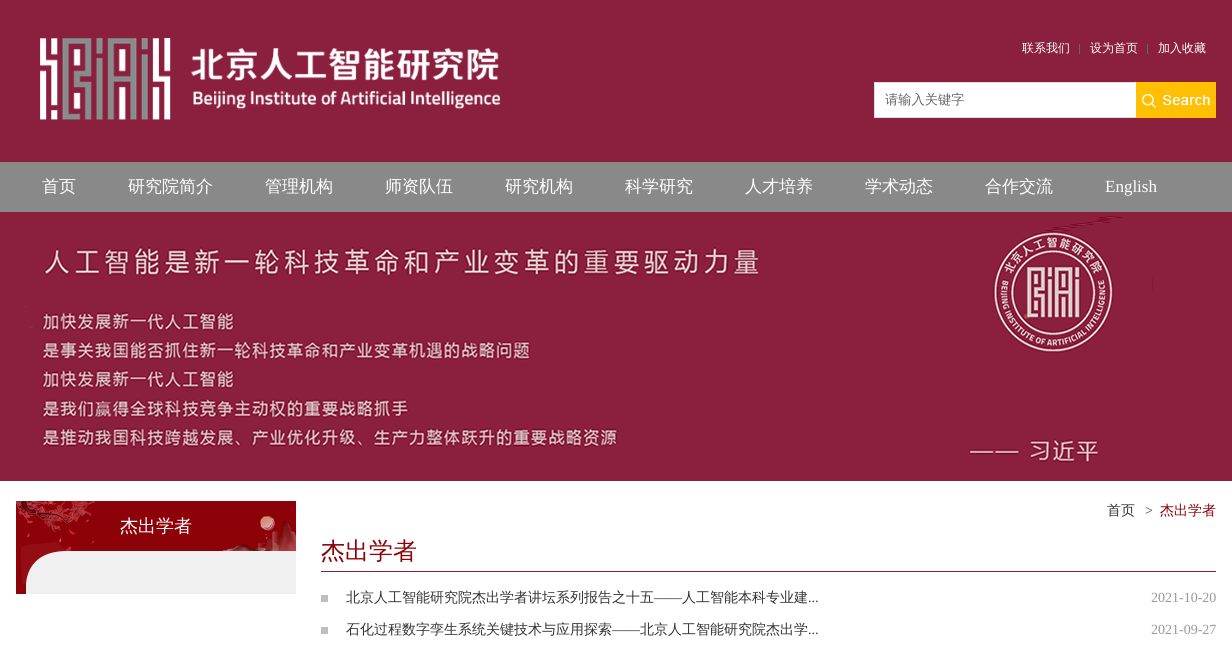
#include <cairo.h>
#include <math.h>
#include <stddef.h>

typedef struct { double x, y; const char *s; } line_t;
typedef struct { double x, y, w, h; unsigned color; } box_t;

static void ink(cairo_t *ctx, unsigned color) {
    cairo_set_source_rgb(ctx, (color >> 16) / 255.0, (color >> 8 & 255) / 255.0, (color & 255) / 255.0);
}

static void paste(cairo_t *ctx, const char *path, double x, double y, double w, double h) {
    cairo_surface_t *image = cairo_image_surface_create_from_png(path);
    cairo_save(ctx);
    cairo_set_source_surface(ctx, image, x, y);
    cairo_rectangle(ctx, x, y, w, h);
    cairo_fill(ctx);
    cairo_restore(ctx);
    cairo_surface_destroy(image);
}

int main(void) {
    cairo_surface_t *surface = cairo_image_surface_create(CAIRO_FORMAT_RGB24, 1232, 652);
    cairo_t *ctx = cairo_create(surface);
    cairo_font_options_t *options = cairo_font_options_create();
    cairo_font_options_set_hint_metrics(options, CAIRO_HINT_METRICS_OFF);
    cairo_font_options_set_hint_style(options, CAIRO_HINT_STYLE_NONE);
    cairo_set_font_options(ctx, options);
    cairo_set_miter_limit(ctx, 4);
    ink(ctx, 0xFFFFFF);
    cairo_paint(ctx);
    ink(ctx, 0x8B1F3E);
    cairo_rectangle(ctx, 0, 0, 1232, 162);
    cairo_fill(ctx);
    paste(ctx, "media/1.png", 40, 38, 460, 82);
    ink(ctx, 0x666666);
    cairo_rectangle(ctx, 1079, 44, 1, 10);
    cairo_fill(ctx);
    cairo_select_font_face(ctx, "WenQuanYi Zen Hei Medium", CAIRO_FONT_SLANT_NORMAL, CAIRO_FONT_WEIGHT_NORMAL);
    cairo_set_font_size(ctx, 12);
    ink(ctx, 0xFFFFFF);
    cairo_move_to(ctx, 1022, 52);
    cairo_show_text(ctx, "联系我们");
    ink(ctx, 0x666666);
    cairo_rectangle(ctx, 1147, 44, 1, 10);
    cairo_fill(ctx);
    ink(ctx, 0xFFFFFF);
    cairo_move_to(ctx, 1090, 52);
    cairo_show_text(ctx, "设为首页");
    cairo_move_to(ctx, 1158, 52);
    cairo_show_text(ctx, "加入收藏");
    {
        static const box_t items[] = {
            {875, 83, 260, 34, 0xFFFFFF},
            {874, 82, 262, 1, 0xDCDCDC},
            {1135, 82, 1, 36, 0xFFFFFF},
            {874, 117, 262, 1, 0xDCDCDC},
            {874, 82, 1, 36, 0xDCDCDC},
        };
        for (size_t i = 0; i < sizeof items / sizeof *items; i++) {
            ink(ctx, items[i].color);
            cairo_rectangle(ctx, items[i].x, items[i].y, items[i].w, items[i].h);
            cairo_fill(ctx);
        }
    }
    cairo_set_font_size(ctx, 13.25);
    ink(ctx, 0x666666);
    cairo_move_to(ctx, 885, 104);
    cairo_show_text(ctx, "请输入关键字");
    paste(ctx, "media/2.png", 1136, 82, 80, 36);
    ink(ctx, 0x898989);
    cairo_rectangle(ctx, 0, 162, 1232, 50);
    cairo_fill(ctx);
    cairo_set_font_size(ctx, 17);
    ink(ctx, 0xFFFFFF);
    {
        static const line_t items[] = {
            {42, 192, "首页"},
            {128, 192, "研究院简介"},
            {265, 192, "管理机构"},
            {385, 192, "师资队伍"},
            {505, 192, "研究机构"},
            {625, 192, "科学研究"},
            {745, 192, "人才培养"},
            {865, 192, "学术动态"},
            {985, 192, "合作交流"},
        };
        for (size_t i = 0; i < sizeof items / sizeof *items; i++) {
            cairo_move_to(ctx, items[i].x, items[i].y);
            cairo_show_text(ctx, items[i].s);
        }
    }
    cairo_select_font_face(ctx, "Liberation Serif", CAIRO_FONT_SLANT_NORMAL, CAIRO_FONT_WEIGHT_NORMAL);
    cairo_move_to(ctx, 1105, 192);
    cairo_show_text(ctx, "English");
    paste(ctx, "media/3.png", 0, 212, 1232, 269);
    paste(ctx, "media/4.png", 16, 501, 280, 83);
    cairo_select_font_face(ctx, "WenQuanYi Zen Hei Medium", CAIRO_FONT_SLANT_NORMAL, CAIRO_FONT_WEIGHT_NORMAL);
    cairo_set_font_size(ctx, 18);
    cairo_move_to(ctx, 120, 532);
    cairo_show_text(ctx, "杰出学者");
    ink(ctx, 0xF0F0F0);
    cairo_rectangle(ctx, 26, 584, 270, 10);
    cairo_fill(ctx);
    ink(ctx, 0x8D030A);
    cairo_rectangle(ctx, 16, 584, 10, 10);
    cairo_fill(ctx);
    cairo_set_font_size(ctx, 14);
    ink(ctx, 0x333333);
    cairo_move_to(ctx, 1107, 515);
    cairo_show_text(ctx, "首页");
    cairo_select_font_face(ctx, "Liberation Serif", CAIRO_FONT_SLANT_NORMAL, CAIRO_FONT_WEIGHT_NORMAL);
    cairo_move_to(ctx, 1145, 515);
    cairo_show_text(ctx, ">");
    cairo_select_font_face(ctx, "WenQuanYi Zen Hei Medium", CAIRO_FONT_SLANT_NORMAL, CAIRO_FONT_WEIGHT_NORMAL);
    ink(ctx, 0x8D030A);
    cairo_move_to(ctx, 1160, 515);
    cairo_show_text(ctx, "杰出学者");
    ink(ctx, 0x8B1F3E);
    cairo_rectangle(ctx, 321, 571, 895, 1);
    cairo_fill(ctx);
    cairo_set_font_size(ctx, 24);
    ink(ctx, 0x8D030A);
    cairo_move_to(ctx, 321, 559);
    cairo_show_text(ctx, "杰出学者");
    ink(ctx, 0xBFBEBE);
    cairo_rectangle(ctx, 321, 595, 7, 7);
    cairo_fill(ctx);
    cairo_set_font_size(ctx, 14);
    ink(ctx, 0x333333);
    cairo_move_to(ctx, 346, 602);
    cairo_show_text(ctx, "北京人工智能研究院杰出学者讲坛系列报告之十五");
    cairo_select_font_face(ctx, "Liberation Serif", CAIRO_FONT_SLANT_NORMAL, CAIRO_FONT_WEIGHT_NORMAL);
    cairo_move_to(ctx, 654, 602);
    cairo_show_text(ctx, "——");
    cairo_select_font_face(ctx, "WenQuanYi Zen Hei Medium", CAIRO_FONT_SLANT_NORMAL, CAIRO_FONT_WEIGHT_NORMAL);
    cairo_move_to(ctx, 682, 602);
    cairo_show_text(ctx, "人工智能本科专业建");
    cairo_select_font_face(ctx, "Liberation Serif", CAIRO_FONT_SLANT_NORMAL, CAIRO_FONT_WEIGHT_NORMAL);
    cairo_move_to(ctx, 808, 602);
    cairo_show_text(ctx, "...");
    ink(ctx, 0x999999);
    cairo_move_to(ctx, 1151, 602);
    cairo_show_text(ctx, "2021-10-20");
    ink(ctx, 0xBFBEBE);
    cairo_rectangle(ctx, 321, 627, 7, 7);
    cairo_fill(ctx);
    cairo_select_font_face(ctx, "WenQuanYi Zen Hei Medium", CAIRO_FONT_SLANT_NORMAL, CAIRO_FONT_WEIGHT_NORMAL);
    ink(ctx, 0x333333);
    cairo_move_to(ctx, 346, 634);
    cairo_show_text(ctx, "石化过程数字孪生系统关键技术与应用探索");
    cairo_select_font_face(ctx, "Liberation Serif", CAIRO_FONT_SLANT_NORMAL, CAIRO_FONT_WEIGHT_NORMAL);
    cairo_move_to(ctx, 612, 634);
    cairo_show_text(ctx, "——");
    cairo_select_font_face(ctx, "WenQuanYi Zen Hei Medium", CAIRO_FONT_SLANT_NORMAL, CAIRO_FONT_WEIGHT_NORMAL);
    cairo_move_to(ctx, 640, 634);
    cairo_show_text(ctx, "北京人工智能研究院杰出学");
    cairo_select_font_face(ctx, "Liberation Serif", CAIRO_FONT_SLANT_NORMAL, CAIRO_FONT_WEIGHT_NORMAL);
    cairo_move_to(ctx, 808, 634);
    cairo_show_text(ctx, "...");
    ink(ctx, 0x999999);
    cairo_move_to(ctx, 1151, 634);
    cairo_show_text(ctx, "2021-09-27");
    cairo_surface_write_to_png(surface, "image.png");
    cairo_font_options_destroy(options);
    cairo_destroy(ctx);
    cairo_surface_destroy(surface);
    return 0;
}
